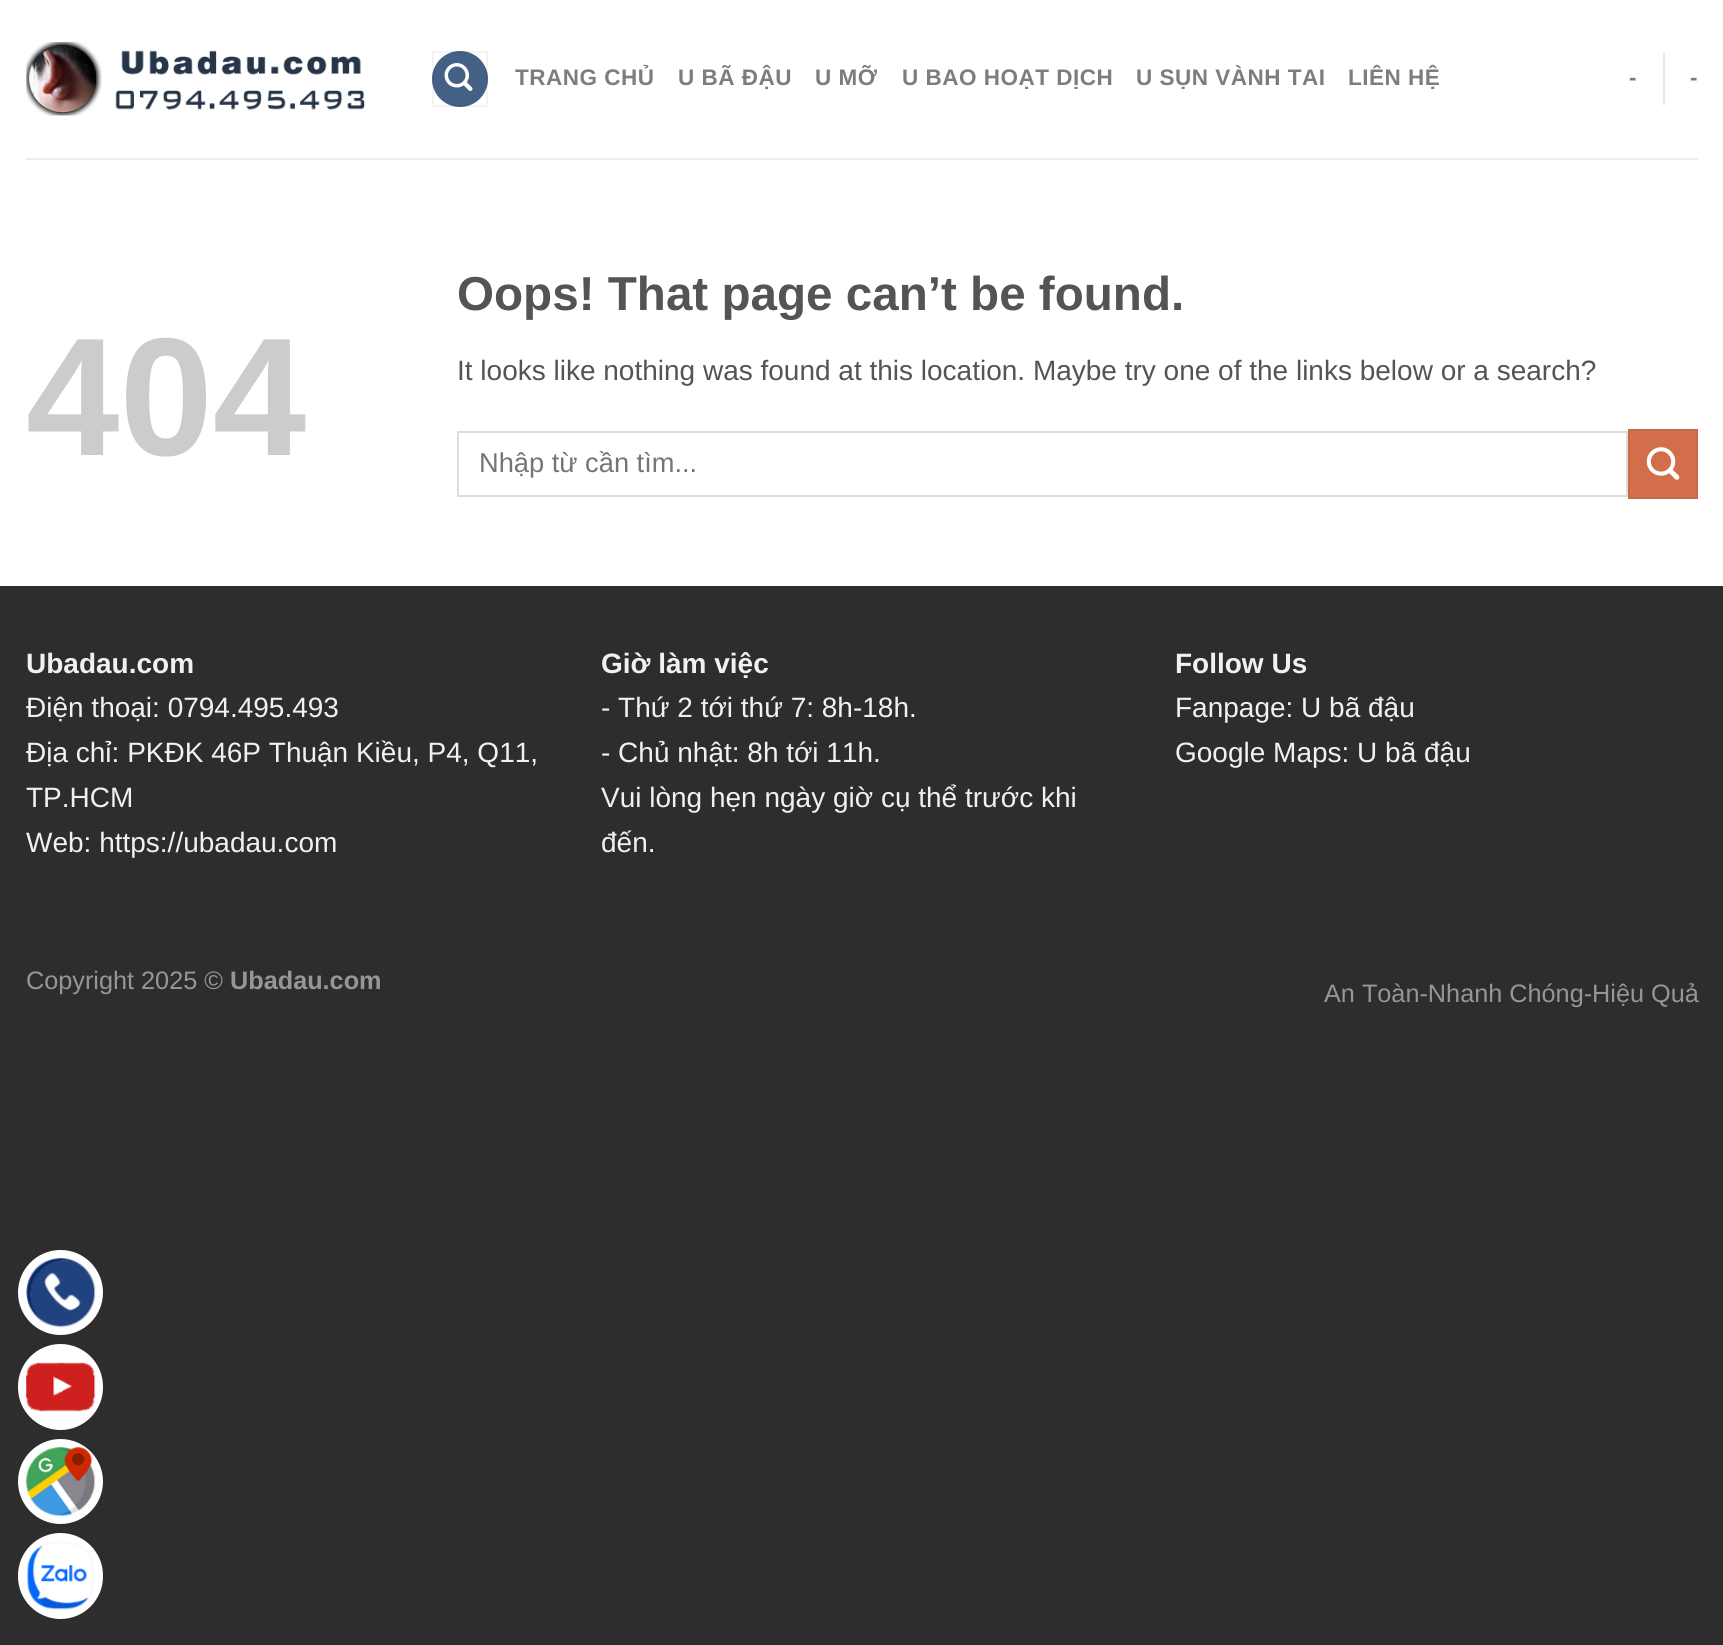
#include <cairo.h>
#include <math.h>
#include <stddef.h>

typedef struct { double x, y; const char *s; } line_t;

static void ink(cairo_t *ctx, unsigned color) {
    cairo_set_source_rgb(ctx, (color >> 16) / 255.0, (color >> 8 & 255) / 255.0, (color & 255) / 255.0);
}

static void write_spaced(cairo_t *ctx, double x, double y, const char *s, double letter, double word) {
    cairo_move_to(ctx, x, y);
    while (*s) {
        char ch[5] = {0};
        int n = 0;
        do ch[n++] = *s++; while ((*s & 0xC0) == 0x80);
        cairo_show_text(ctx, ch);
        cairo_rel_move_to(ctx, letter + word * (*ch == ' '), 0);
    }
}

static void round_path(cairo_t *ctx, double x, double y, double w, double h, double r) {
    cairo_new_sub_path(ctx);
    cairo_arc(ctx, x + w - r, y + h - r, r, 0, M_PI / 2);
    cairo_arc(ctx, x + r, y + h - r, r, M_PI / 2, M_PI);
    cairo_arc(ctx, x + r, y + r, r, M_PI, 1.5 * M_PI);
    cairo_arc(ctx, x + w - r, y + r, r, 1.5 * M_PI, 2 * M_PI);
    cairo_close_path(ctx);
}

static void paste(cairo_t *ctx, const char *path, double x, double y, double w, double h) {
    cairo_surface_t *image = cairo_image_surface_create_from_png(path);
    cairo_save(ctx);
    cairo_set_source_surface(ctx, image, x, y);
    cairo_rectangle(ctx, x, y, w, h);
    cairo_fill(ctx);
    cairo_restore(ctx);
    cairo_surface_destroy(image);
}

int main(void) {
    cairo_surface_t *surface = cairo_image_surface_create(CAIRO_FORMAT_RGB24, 1723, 1645);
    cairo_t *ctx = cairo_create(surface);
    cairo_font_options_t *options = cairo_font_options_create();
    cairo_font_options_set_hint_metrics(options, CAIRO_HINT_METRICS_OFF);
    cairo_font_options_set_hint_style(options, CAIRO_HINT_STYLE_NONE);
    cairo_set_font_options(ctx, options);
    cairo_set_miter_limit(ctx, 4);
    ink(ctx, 0x2D2D2D);
    cairo_paint(ctx);
    ink(ctx, 0xFFFFFF);
    cairo_rectangle(ctx, 0, 0, 1723, 586);
    cairo_fill(ctx);
    paste(ctx, "media/1.png", 26, 42, 339, 74);
    ink(ctx, 0x446084);
    cairo_arc(ctx, 460, 79, 28, 0, 2 * M_PI);
    cairo_fill(ctx);
    cairo_rectangle(ctx, 433, 52, 54, 54);
    cairo_set_source_rgba(ctx, 0, 0, 0, 0.05);
    cairo_stroke(ctx);
    paste(ctx, "media/2.png", 444, 63, 29, 28);
    cairo_select_font_face(ctx, "Liberation Sans", CAIRO_FONT_SLANT_NORMAL, CAIRO_FONT_WEIGHT_BOLD);
    cairo_set_font_size(ctx, 22.5);
    ink(ctx, 0x7D7D7D);
    {
        static const line_t items[] = {
            {515, 85, "TRANG CHỦ"},
            {678, 85, "U BÃ ĐẬU"},
            {815, 85, "U MỠ"},
            {902, 85, "U BAO HOẠT DỊCH"},
            {1136, 85, "U SỤN VÀNH TAI"},
            {1348, 85, "LIÊN HỆ"},
            {1629, 85, "-"},
        };
        for (size_t i = 0; i < sizeof items / sizeof *items; i++) {
            write_spaced(ctx, items[i].x, items[i].y, items[i].s, 0.5, 0);
        }
    }
    ink(ctx, 0xE6E6E6);
    cairo_rectangle(ctx, 1663, 53, 2, 52);
    cairo_fill(ctx);
    ink(ctx, 0x7D7D7D);
    write_spaced(ctx, 1690, 85, "-", 0.5, 0);
    ink(ctx, 0xEEEEEE);
    cairo_rectangle(ctx, 26, 158, 1672, 2);
    cairo_fill(ctx);
    cairo_set_font_size(ctx, 168);
    ink(ctx, 0xCCCCCC);
    cairo_move_to(ctx, 26, 455);
    cairo_show_text(ctx, "404");
    cairo_set_font_size(ctx, 47.6);
    ink(ctx, 0x545454);
    cairo_move_to(ctx, 457, 310);
    cairo_show_text(ctx, "Oops! That page can’t be found.");
    cairo_select_font_face(ctx, "Liberation Sans", CAIRO_FONT_SLANT_NORMAL, CAIRO_FONT_WEIGHT_NORMAL);
    cairo_set_font_size(ctx, 28);
    cairo_move_to(ctx, 457, 380);
    cairo_show_text(ctx, "It looks like nothing was found at this location. Maybe try one of the links below or a search?");
    cairo_rectangle(ctx, 458, 432, 1169, 64);
    ink(ctx, 0xDDDDDD);
    cairo_stroke(ctx);
    cairo_set_font_size(ctx, 27.25);
    ink(ctx, 0x757575);
    cairo_move_to(ctx, 479, 472);
    cairo_show_text(ctx, "Nhập từ cần tìm...");
    ink(ctx, 0xD26E4B);
    cairo_rectangle(ctx, 1629, 430, 68, 68);
    cairo_fill_preserve(ctx);
    ink(ctx, 0xC86947);
    cairo_stroke(ctx);
    paste(ctx, "media/3.png", 1646, 447, 34, 33);
    cairo_select_font_face(ctx, "Liberation Sans", CAIRO_FONT_SLANT_NORMAL, CAIRO_FONT_WEIGHT_BOLD);
    cairo_set_font_size(ctx, 28);
    ink(ctx, 0xF1F1F1);
    cairo_move_to(ctx, 26, 673);
    cairo_show_text(ctx, "Ubadau.com");
    cairo_select_font_face(ctx, "Liberation Sans", CAIRO_FONT_SLANT_NORMAL, CAIRO_FONT_WEIGHT_NORMAL);
    {
        static const line_t items[] = {
            {26, 717, "Điện thoại: 0794.495.493"},
            {26, 762, "Địa chỉ: PKĐK 46P Thuận Kiều, P4, Q11,"},
            {26, 807, "TP.HCM"},
            {26, 852, "Web: https://ubadau.com"},
        };
        for (size_t i = 0; i < sizeof items / sizeof *items; i++) {
            cairo_move_to(ctx, items[i].x, items[i].y);
            cairo_show_text(ctx, items[i].s);
        }
    }
    cairo_select_font_face(ctx, "Liberation Sans", CAIRO_FONT_SLANT_NORMAL, CAIRO_FONT_WEIGHT_BOLD);
    cairo_move_to(ctx, 601, 673);
    cairo_show_text(ctx, "Giờ làm việc");
    cairo_select_font_face(ctx, "Liberation Sans", CAIRO_FONT_SLANT_NORMAL, CAIRO_FONT_WEIGHT_NORMAL);
    {
        static const line_t items[] = {
            {601, 717, "- Thứ 2 tới thứ 7: 8h-18h."},
            {601, 762, "- Chủ nhật: 8h tới 11h."},
            {601, 807, "Vui lòng hẹn ngày giờ cụ thể trước khi"},
            {601, 852, "đến."},
        };
        for (size_t i = 0; i < sizeof items / sizeof *items; i++) {
            cairo_move_to(ctx, items[i].x, items[i].y);
            cairo_show_text(ctx, items[i].s);
        }
    }
    cairo_select_font_face(ctx, "Liberation Sans", CAIRO_FONT_SLANT_NORMAL, CAIRO_FONT_WEIGHT_BOLD);
    cairo_move_to(ctx, 1175, 673);
    cairo_show_text(ctx, "Follow Us");
    cairo_select_font_face(ctx, "Liberation Sans", CAIRO_FONT_SLANT_NORMAL, CAIRO_FONT_WEIGHT_NORMAL);
    cairo_move_to(ctx, 1175, 717);
    cairo_show_text(ctx, "Fanpage: U bã đậu");
    cairo_move_to(ctx, 1175, 762);
    cairo_show_text(ctx, "Google Maps: U bã đậu");
    cairo_set_font_size(ctx, 25.25);
    ink(ctx, 0x969696);
    cairo_move_to(ctx, 26, 989);
    cairo_show_text(ctx, "Copyright 2025 ©");
    cairo_select_font_face(ctx, "Liberation Sans", CAIRO_FONT_SLANT_NORMAL, CAIRO_FONT_WEIGHT_BOLD);
    cairo_move_to(ctx, 230, 989);
    cairo_show_text(ctx, "Ubadau.com");
    cairo_select_font_face(ctx, "Liberation Sans", CAIRO_FONT_SLANT_NORMAL, CAIRO_FONT_WEIGHT_NORMAL);
    cairo_move_to(ctx, 1324, 1002);
    cairo_show_text(ctx, "An Toàn-Nhanh Chóng-Hiệu Quả");
    ink(ctx, 0xFFFFFF);
    cairo_new_path(ctx);
    cairo_arc(ctx, 60.5, 1292.5, 42.5, 0, 2 * M_PI);
    cairo_fill(ctx);
    paste(ctx, "media/4.png", 26, 1258, 70, 70);
    round_path(ctx, 18, 1344, 85, 86, 42.5);
    cairo_fill(ctx);
    paste(ctx, "media/5.png", 26, 1362, 70, 50);
    cairo_arc(ctx, 60.5, 1481.5, 42.5, 0, 2 * M_PI);
    cairo_fill(ctx);
    paste(ctx, "media/6.png", 26, 1447, 70, 70);
    round_path(ctx, 18, 1533, 85, 86, 42.5);
    cairo_fill(ctx);
    paste(ctx, "media/7.png", 27, 1542, 67, 68);
    cairo_surface_write_to_png(surface, "image.png");
    cairo_font_options_destroy(options);
    cairo_destroy(ctx);
    cairo_surface_destroy(surface);
    return 0;
}
